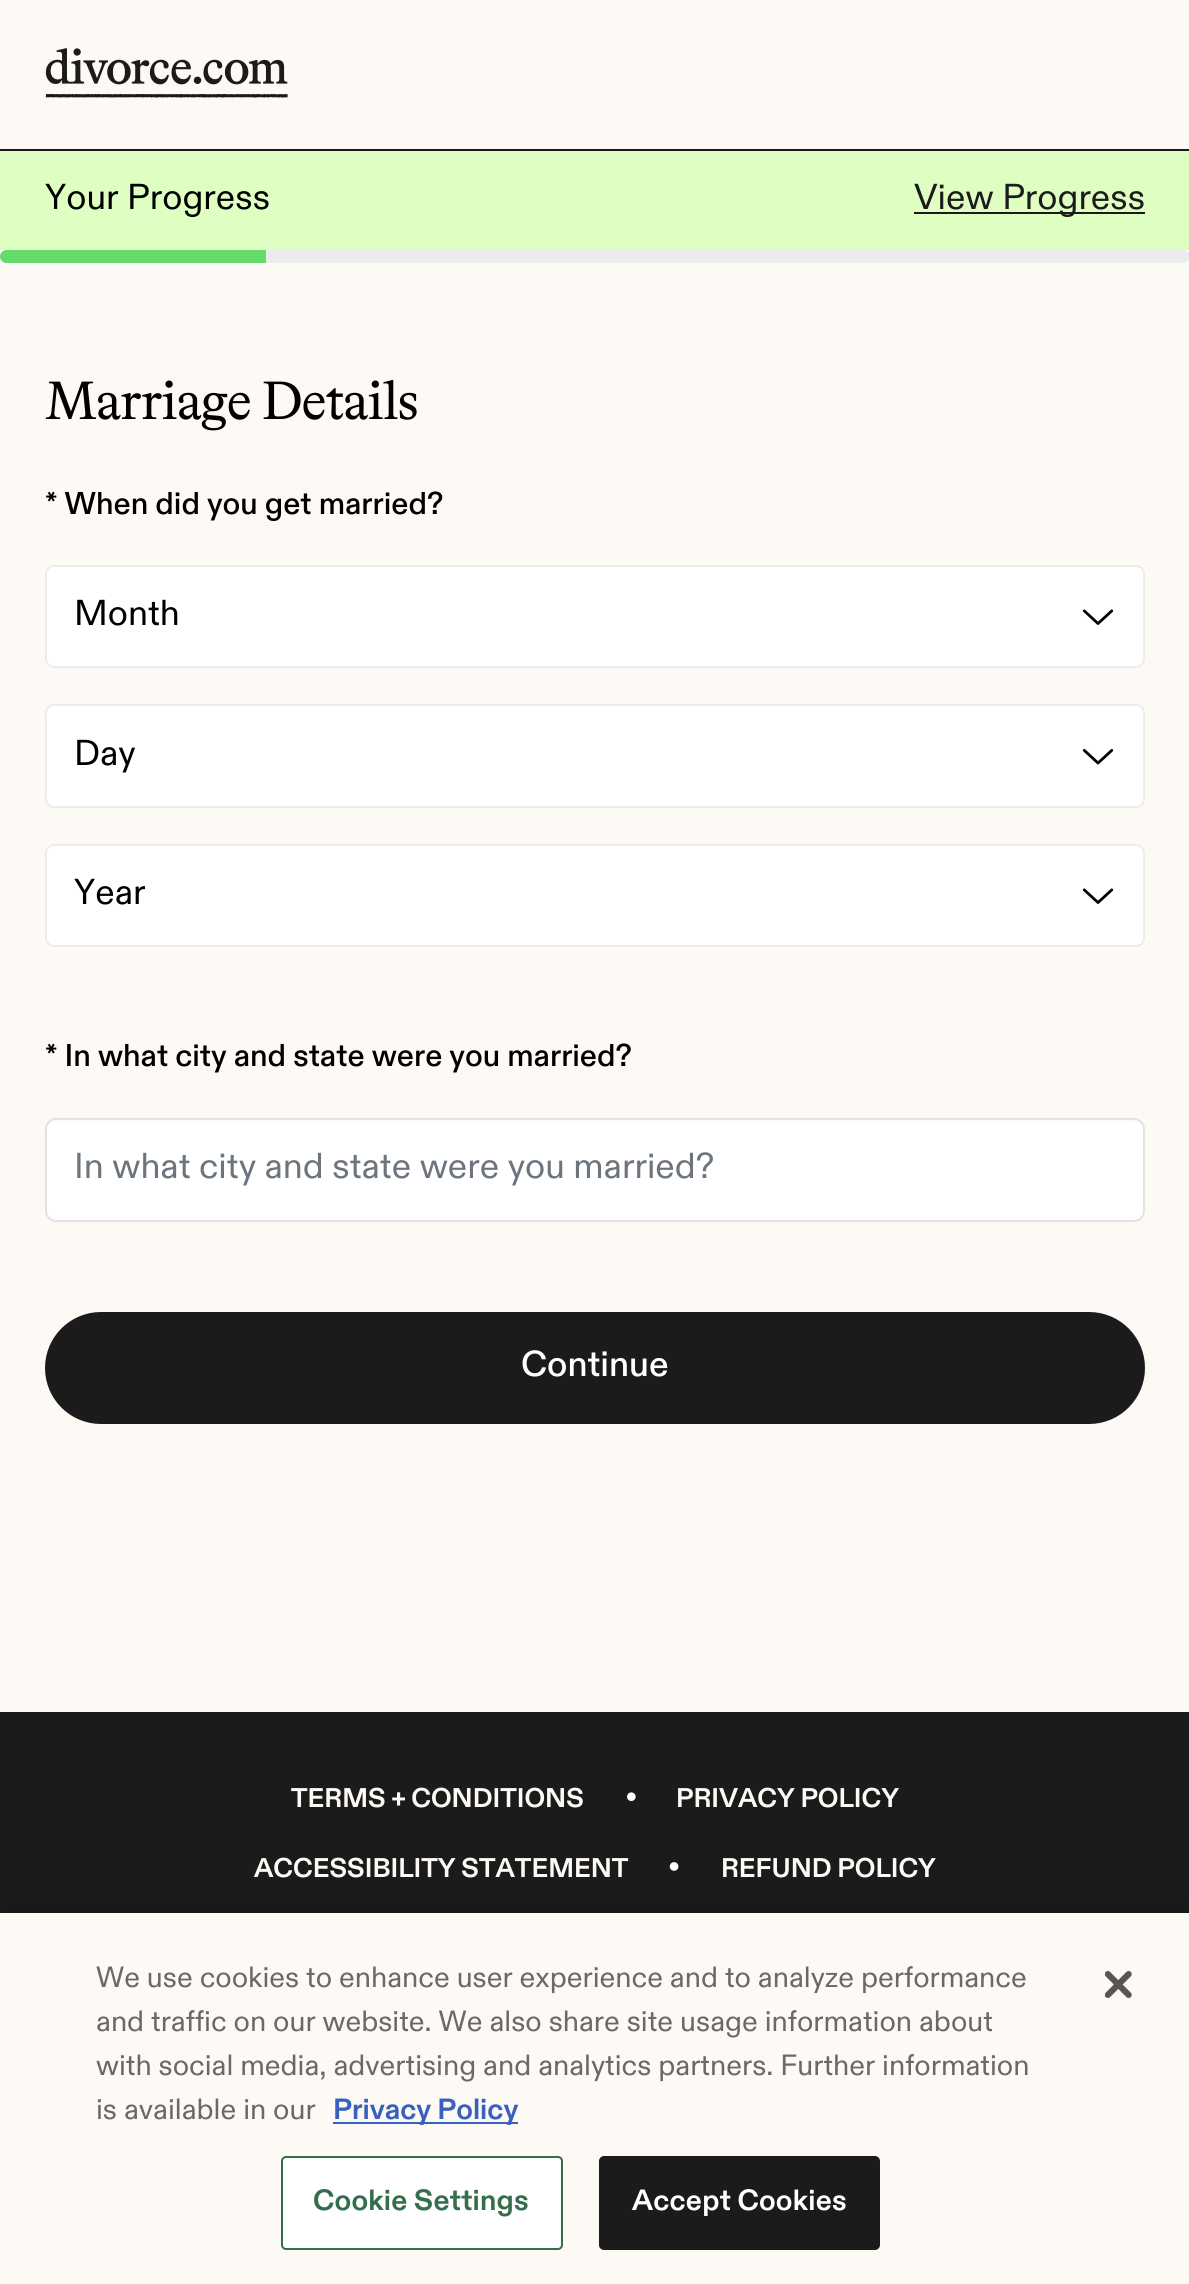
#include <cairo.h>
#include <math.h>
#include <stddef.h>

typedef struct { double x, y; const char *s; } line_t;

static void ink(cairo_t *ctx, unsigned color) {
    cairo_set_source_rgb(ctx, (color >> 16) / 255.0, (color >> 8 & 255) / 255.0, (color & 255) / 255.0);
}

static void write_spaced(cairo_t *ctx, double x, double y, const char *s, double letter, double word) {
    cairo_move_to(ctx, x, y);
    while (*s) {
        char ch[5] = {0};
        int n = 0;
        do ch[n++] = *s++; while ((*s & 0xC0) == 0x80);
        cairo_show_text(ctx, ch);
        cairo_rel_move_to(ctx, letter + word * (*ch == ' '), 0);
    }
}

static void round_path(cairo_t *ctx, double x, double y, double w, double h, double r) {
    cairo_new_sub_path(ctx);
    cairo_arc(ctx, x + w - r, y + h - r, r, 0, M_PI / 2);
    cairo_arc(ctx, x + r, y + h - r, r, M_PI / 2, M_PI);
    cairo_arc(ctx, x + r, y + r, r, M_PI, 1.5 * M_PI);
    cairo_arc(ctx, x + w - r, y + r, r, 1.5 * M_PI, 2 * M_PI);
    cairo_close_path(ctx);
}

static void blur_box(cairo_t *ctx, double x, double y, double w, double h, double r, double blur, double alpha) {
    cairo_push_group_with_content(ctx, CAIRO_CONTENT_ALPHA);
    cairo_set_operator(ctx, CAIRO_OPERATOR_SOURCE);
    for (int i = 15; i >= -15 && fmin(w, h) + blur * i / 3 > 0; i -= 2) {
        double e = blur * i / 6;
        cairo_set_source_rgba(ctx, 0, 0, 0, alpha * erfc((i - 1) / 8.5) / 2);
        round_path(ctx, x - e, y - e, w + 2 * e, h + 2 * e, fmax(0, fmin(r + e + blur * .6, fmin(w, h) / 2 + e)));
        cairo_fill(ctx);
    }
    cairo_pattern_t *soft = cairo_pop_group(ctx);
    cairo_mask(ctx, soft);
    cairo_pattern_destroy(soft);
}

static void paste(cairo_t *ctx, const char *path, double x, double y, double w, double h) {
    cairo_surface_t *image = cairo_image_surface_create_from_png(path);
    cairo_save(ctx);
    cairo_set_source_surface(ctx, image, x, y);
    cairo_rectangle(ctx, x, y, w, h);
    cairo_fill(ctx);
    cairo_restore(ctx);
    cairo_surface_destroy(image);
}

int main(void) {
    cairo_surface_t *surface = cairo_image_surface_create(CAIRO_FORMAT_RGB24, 1189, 2284);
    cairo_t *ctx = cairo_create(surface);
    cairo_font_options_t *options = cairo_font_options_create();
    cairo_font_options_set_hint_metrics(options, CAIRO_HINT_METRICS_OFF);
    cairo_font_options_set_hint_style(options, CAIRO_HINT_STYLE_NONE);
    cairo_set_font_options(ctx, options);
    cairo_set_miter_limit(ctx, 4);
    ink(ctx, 0xFFFFFF);
    cairo_paint(ctx);
    ink(ctx, 0xFDF9F4);
    cairo_rectangle(ctx, 0, 0, 1189, 149);
    cairo_fill(ctx);
    ink(ctx, 0x1B1B1B);
    cairo_rectangle(ctx, 0, 149, 1189, 2);
    cairo_fill(ctx);
    paste(ctx, "media/1.png", 45, 48, 243, 50);
    ink(ctx, 0xDFFFC2);
    cairo_rectangle(ctx, 0, 151, 1189, 99);
    cairo_fill(ctx);
    cairo_select_font_face(ctx, "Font", CAIRO_FONT_SLANT_NORMAL, CAIRO_FONT_WEIGHT_NORMAL);
    cairo_set_font_size(ctx, 36);
    ink(ctx, 0x000000);
    cairo_move_to(ctx, 45, 209);
    cairo_show_text(ctx, "Your Progress");
    ink(ctx, 0x1B1B1B);
    cairo_rectangle(ctx, 914, 212, 231, 2);
    cairo_fill(ctx);
    cairo_move_to(ctx, 914, 209);
    cairo_show_text(ctx, "View Progress");
    ink(ctx, 0xECECEC);
    round_path(ctx, 0, 250, 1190, 13, 6.5);
    cairo_fill(ctx);
    ink(ctx, 0x65DB6A);
    cairo_new_path(ctx);
    cairo_move_to(ctx, 6.5, 250);
    cairo_line_to(ctx, 266, 250);
    cairo_line_to(ctx, 266, 263);
    cairo_line_to(ctx, 6.5, 263);
    cairo_curve_to(ctx, 3, 263, 0, 260, 0, 256.5);
    cairo_curve_to(ctx, 0, 253, 3, 250, 6.5, 250);
    cairo_close_path(ctx);
    cairo_fill(ctx);
    ink(ctx, 0xFDF9F4);
    cairo_rectangle(ctx, 0, 263, 1189, 1449);
    cairo_fill(ctx);
    cairo_select_font_face(ctx, "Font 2", CAIRO_FONT_SLANT_NORMAL, CAIRO_FONT_WEIGHT_NORMAL);
    cairo_set_font_size(ctx, 54);
    ink(ctx, 0x000000);
    write_spaced(ctx, 45, 419, "Marriage Details", -1.1, 0);
    cairo_select_font_face(ctx, "Font Medium", CAIRO_FONT_SLANT_NORMAL, CAIRO_FONT_WEIGHT_NORMAL);
    cairo_set_font_size(ctx, 31.5);
    cairo_move_to(ctx, 45, 514);
    cairo_show_text(ctx, "* When did you get married?");
    ink(ctx, 0xFFFFFF);
    round_path(ctx, 45, 565, 1100, 103, 9);
    cairo_fill(ctx);
    paste(ctx, "media/2.png", 1082, 609, 32, 16);
    round_path(ctx, 46, 566, 1098, 101, 8);
    ink(ctx, 0xECECEC);
    cairo_stroke(ctx);
    cairo_select_font_face(ctx, "Font", CAIRO_FONT_SLANT_NORMAL, CAIRO_FONT_WEIGHT_NORMAL);
    cairo_set_font_size(ctx, 36);
    ink(ctx, 0x000000);
    cairo_move_to(ctx, 74, 625);
    cairo_show_text(ctx, "Month");
    ink(ctx, 0xFFFFFF);
    round_path(ctx, 45, 704, 1100, 104, 9);
    cairo_fill(ctx);
    paste(ctx, "media/3.png", 1082, 749, 32, 16);
    round_path(ctx, 46, 705, 1098, 102, 8);
    ink(ctx, 0xECECEC);
    cairo_stroke(ctx);
    ink(ctx, 0x000000);
    cairo_move_to(ctx, 74, 765);
    cairo_show_text(ctx, "Day");
    ink(ctx, 0xFFFFFF);
    round_path(ctx, 45, 844, 1100, 103, 9);
    cairo_fill(ctx);
    paste(ctx, "media/2.png", 1082, 888, 32, 16);
    round_path(ctx, 46, 845, 1098, 101, 8);
    ink(ctx, 0xECECEC);
    cairo_stroke(ctx);
    ink(ctx, 0x000000);
    cairo_move_to(ctx, 74, 904);
    cairo_show_text(ctx, "Year");
    cairo_select_font_face(ctx, "Font Medium", CAIRO_FONT_SLANT_NORMAL, CAIRO_FONT_WEIGHT_NORMAL);
    cairo_set_font_size(ctx, 31.5);
    cairo_move_to(ctx, 45, 1066);
    cairo_show_text(ctx, "* In what city and state were you married?");
    ink(ctx, 0xFFFFFF);
    round_path(ctx, 47, 1121, 1096, 99, 9);
    cairo_fill(ctx);
    round_path(ctx, 46, 1119, 1098, 102, 10);
    ink(ctx, 0xE3E3E3);
    cairo_stroke(ctx);
    cairo_select_font_face(ctx, "Font", CAIRO_FONT_SLANT_NORMAL, CAIRO_FONT_WEIGHT_NORMAL);
    cairo_set_font_size(ctx, 36);
    ink(ctx, 0x6C757D);
    cairo_move_to(ctx, 74, 1178);
    cairo_show_text(ctx, "In what city and state were you married?");
    ink(ctx, 0x1B1B1B);
    round_path(ctx, 46, 1313, 1098, 110, 55);
    cairo_fill_preserve(ctx);
    cairo_stroke(ctx);
    cairo_select_font_face(ctx, "Font Medium", CAIRO_FONT_SLANT_NORMAL, CAIRO_FONT_WEIGHT_NORMAL);
    ink(ctx, 0xFFFFFF);
    cairo_move_to(ctx, 521, 1376);
    cairo_show_text(ctx, "Continue");
    ink(ctx, 0x1B1B1B);
    cairo_rectangle(ctx, 0, 1712, 1189, 201);
    cairo_fill(ctx);
    cairo_select_font_face(ctx, "Font", CAIRO_FONT_SLANT_NORMAL, CAIRO_FONT_WEIGHT_BOLD);
    cairo_set_font_size(ctx, 27);
    ink(ctx, 0xFDF9F4);
    cairo_move_to(ctx, 291, 1807);
    cairo_show_text(ctx, "TERMS + CONDITIONS");
    paste(ctx, "media/4.png", 627, 1792, 9, 9);
    cairo_move_to(ctx, 676, 1807);
    cairo_show_text(ctx, "PRIVACY POLICY");
    cairo_move_to(ctx, 254, 1877);
    cairo_show_text(ctx, "ACCESSIBILITY STATEMENT");
    paste(ctx, "media/5.png", 669, 1862, 10, 9);
    cairo_move_to(ctx, 721, 1877);
    cairo_show_text(ctx, "REFUND POLICY");
    ink(ctx, 0x000000);
    blur_box(ctx, 0, 1913, 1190, 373, 0, 20, 0.2);
    ink(ctx, 0xFDF9F4);
    cairo_rectangle(ctx, 0, 1913, 1189, 371);
    cairo_fill(ctx);
    cairo_select_font_face(ctx, "Font", CAIRO_FONT_SLANT_NORMAL, CAIRO_FONT_WEIGHT_NORMAL);
    cairo_set_font_size(ctx, 29.25);
    ink(ctx, 0x696969);
    {
        static const line_t items[] = {
            {96, 1987, "We use cookies to enhance user experience and to analyze performance"},
            {96, 2031, "and traffic on our website. We also share site usage information about"},
            {96, 2075, "with social media, advertising and analytics partners. Further information"},
            {96, 2119, "is available in our"},
        };
        for (size_t i = 0; i < sizeof items / sizeof *items; i++) {
            cairo_move_to(ctx, items[i].x, items[i].y);
            cairo_show_text(ctx, items[i].s);
        }
    }
    ink(ctx, 0x3860BE);
    cairo_rectangle(ctx, 333, 2122, 185, 2);
    cairo_fill(ctx);
    cairo_select_font_face(ctx, "Font", CAIRO_FONT_SLANT_NORMAL, CAIRO_FONT_WEIGHT_BOLD);
    cairo_move_to(ctx, 333, 2119);
    cairo_show_text(ctx, "Privacy Policy");
    ink(ctx, 0xFFFFFF);
    round_path(ctx, 282, 2157, 280, 92, 4);
    cairo_fill_preserve(ctx);
    ink(ctx, 0x346E4A);
    cairo_stroke(ctx);
    write_spaced(ctx, 313, 2210, "Cookie Settings", 0.25, 0);
    ink(ctx, 0x1B1B1B);
    round_path(ctx, 600, 2157, 279, 92, 4);
    cairo_fill_preserve(ctx);
    cairo_stroke(ctx);
    ink(ctx, 0xFFFFFF);
    write_spaced(ctx, 632, 2210, "Accept Cookies", 0.25, 0);
    paste(ctx, "media/6.png", 1105, 1971, 27, 27);
    cairo_surface_write_to_png(surface, "image.png");
    cairo_font_options_destroy(options);
    cairo_destroy(ctx);
    cairo_surface_destroy(surface);
    return 0;
}
